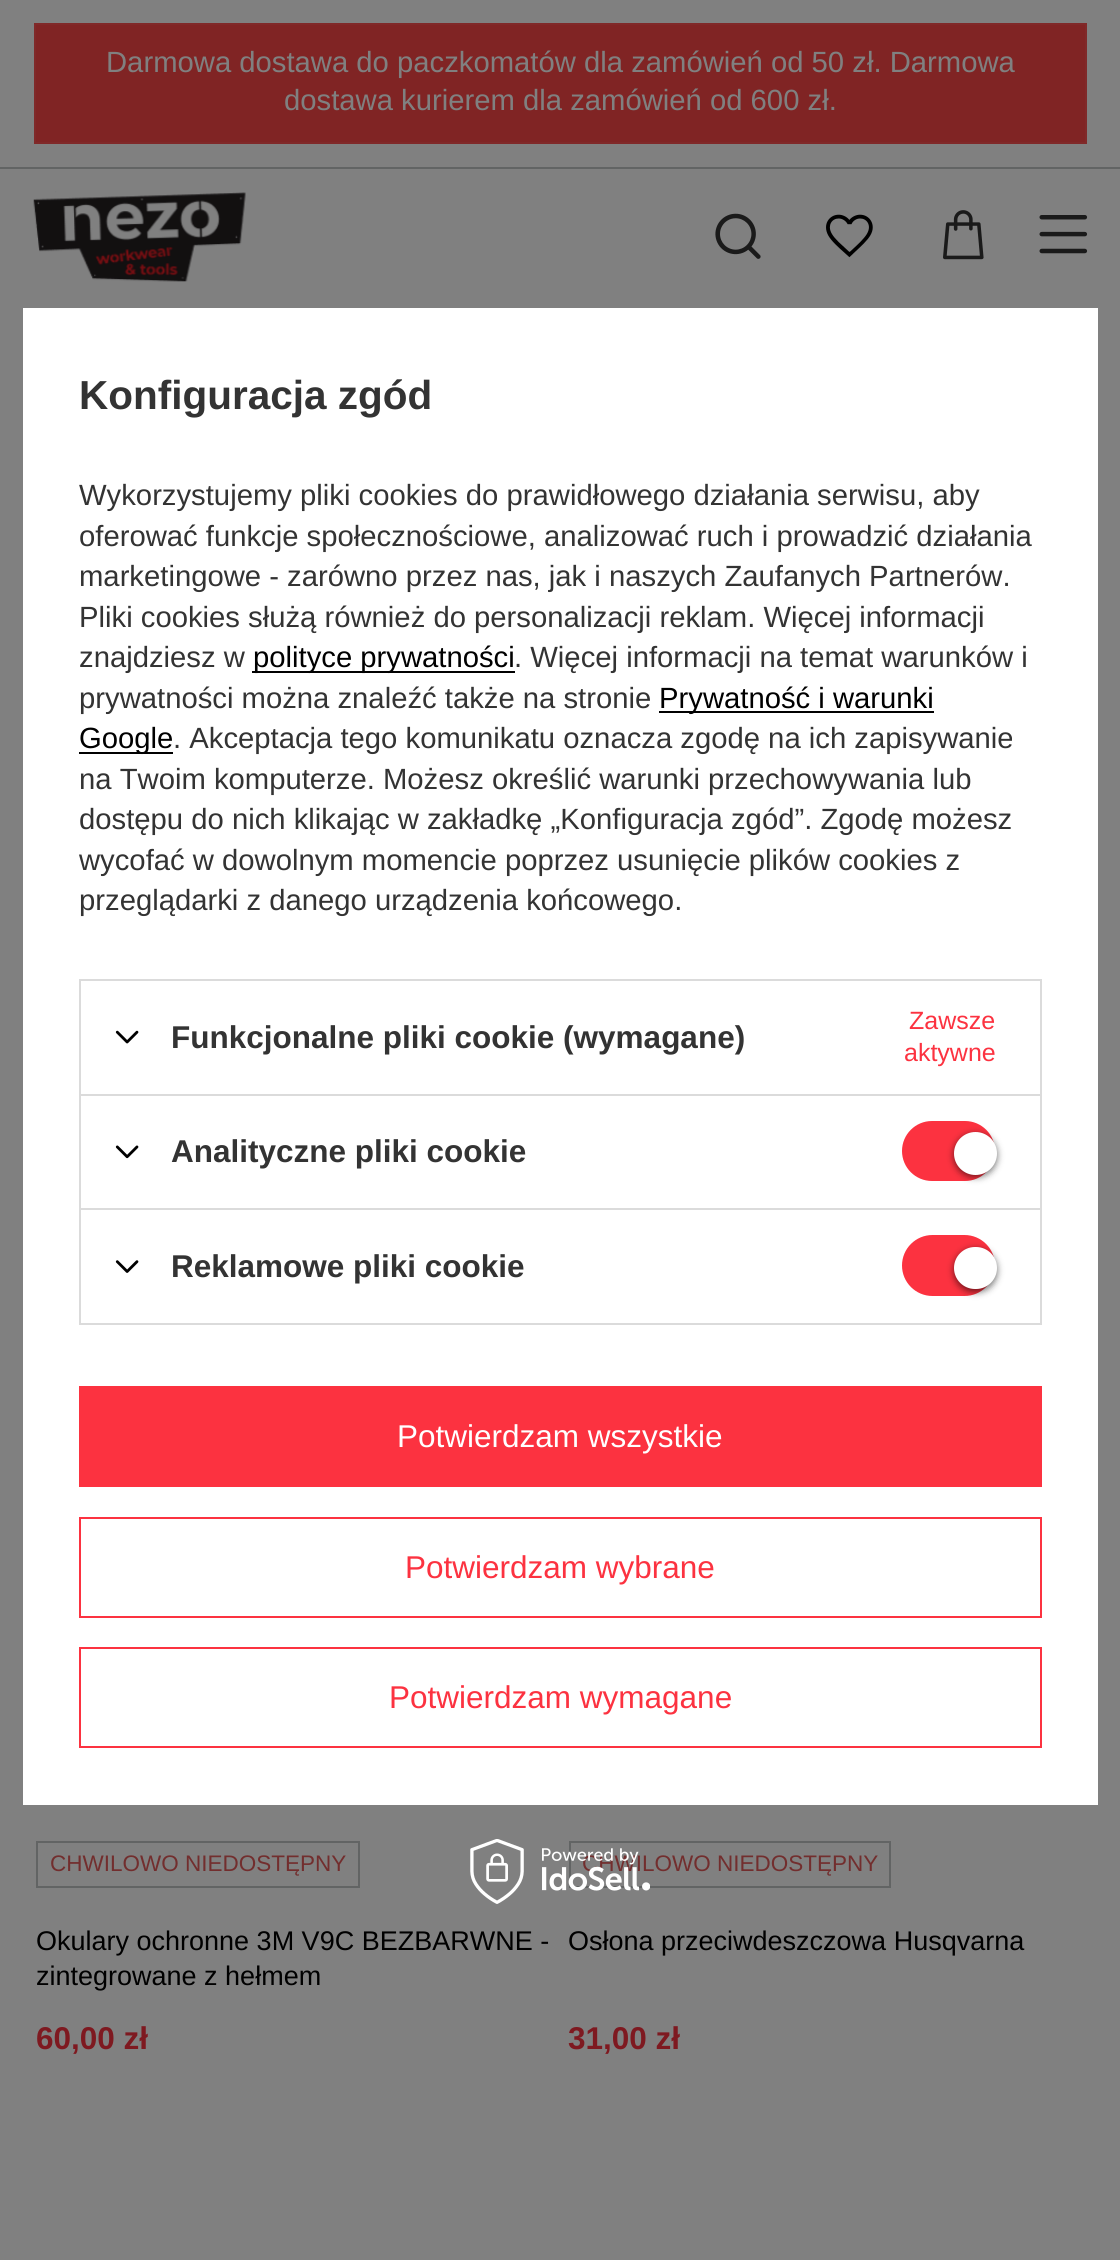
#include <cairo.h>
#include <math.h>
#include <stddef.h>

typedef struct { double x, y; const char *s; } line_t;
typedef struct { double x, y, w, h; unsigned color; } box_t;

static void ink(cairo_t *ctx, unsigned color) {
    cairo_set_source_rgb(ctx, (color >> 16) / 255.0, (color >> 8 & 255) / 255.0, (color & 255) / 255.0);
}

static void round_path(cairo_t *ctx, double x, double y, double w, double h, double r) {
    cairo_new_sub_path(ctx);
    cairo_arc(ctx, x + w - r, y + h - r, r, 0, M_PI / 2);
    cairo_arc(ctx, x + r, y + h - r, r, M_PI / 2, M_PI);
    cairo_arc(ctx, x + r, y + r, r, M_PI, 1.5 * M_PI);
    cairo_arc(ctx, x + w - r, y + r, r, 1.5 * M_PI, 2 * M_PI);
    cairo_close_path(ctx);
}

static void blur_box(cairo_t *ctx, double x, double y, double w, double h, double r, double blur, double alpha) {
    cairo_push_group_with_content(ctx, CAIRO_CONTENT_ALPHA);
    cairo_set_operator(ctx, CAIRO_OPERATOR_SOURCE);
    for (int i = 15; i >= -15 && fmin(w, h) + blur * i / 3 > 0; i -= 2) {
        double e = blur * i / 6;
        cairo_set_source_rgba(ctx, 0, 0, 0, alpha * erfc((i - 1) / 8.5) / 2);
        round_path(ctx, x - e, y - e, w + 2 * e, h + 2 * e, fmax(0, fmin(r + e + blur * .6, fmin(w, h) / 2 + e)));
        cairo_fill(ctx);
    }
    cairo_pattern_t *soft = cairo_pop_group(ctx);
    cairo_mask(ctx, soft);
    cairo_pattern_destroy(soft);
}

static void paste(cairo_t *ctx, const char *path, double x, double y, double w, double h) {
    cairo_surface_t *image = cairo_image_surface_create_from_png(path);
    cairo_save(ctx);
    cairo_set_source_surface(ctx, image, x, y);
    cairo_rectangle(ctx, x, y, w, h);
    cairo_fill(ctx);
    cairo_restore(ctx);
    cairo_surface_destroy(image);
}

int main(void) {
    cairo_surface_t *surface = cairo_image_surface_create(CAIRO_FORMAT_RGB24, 1120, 2260);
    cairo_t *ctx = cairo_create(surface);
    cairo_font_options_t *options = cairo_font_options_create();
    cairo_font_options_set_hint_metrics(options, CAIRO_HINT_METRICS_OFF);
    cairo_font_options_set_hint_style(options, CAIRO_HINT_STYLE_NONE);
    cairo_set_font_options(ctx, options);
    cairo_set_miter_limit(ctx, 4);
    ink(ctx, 0x808080);
    cairo_paint(ctx);
    ink(ctx, 0x626464);
    cairo_rectangle(ctx, 0, 167, 1120, 2);
    cairo_fill(ctx);
    ink(ctx, 0x802424);
    cairo_rectangle(ctx, 35, 24, 1051, 119);
    cairo_fill_preserve(ctx);
    ink(ctx, 0x802929);
    cairo_stroke(ctx);
    cairo_select_font_face(ctx, "Liberation Sans", CAIRO_FONT_SLANT_NORMAL, CAIRO_FONT_WEIGHT_NORMAL);
    cairo_set_font_size(ctx, 29.25);
    ink(ctx, 0x808080);
    cairo_move_to(ctx, 106, 72);
    cairo_show_text(ctx, "Darmowa dostawa do paczkomatów dla zamówień od 50 zł. Darmowa");
    cairo_move_to(ctx, 284, 110);
    cairo_show_text(ctx, "dostawa kurierem dla zamówień od 600 zł.");
    paste(ctx, "media/1.png", 33, 191, 213, 91);
    paste(ctx, "media/2.png", 715, 213, 46, 46);
    paste(ctx, "media/3.png", 826, 214, 47, 44);
    paste(ctx, "media/4.png", 943, 210, 41, 50);
    paste(ctx, "media/5.png", 1039, 215, 49, 39);
    cairo_rectangle(ctx, 37, 1842, 322, 45);
    ink(ctx, 0x626464);
    cairo_stroke(ctx);
    cairo_set_font_size(ctx, 22.5);
    ink(ctx, 0x722E2E);
    cairo_move_to(ctx, 50, 1871);
    cairo_show_text(ctx, "CHWILOWO NIEDOSTĘPNY");
    cairo_set_font_size(ctx, 27);
    ink(ctx, 0x000000);
    cairo_move_to(ctx, 36, 1950);
    cairo_show_text(ctx, "Okulary ochronne 3M V9C BEZBARWNE -");
    cairo_move_to(ctx, 36, 1985);
    cairo_show_text(ctx, "zintegrowane z hełmem");
    cairo_select_font_face(ctx, "Liberation Sans", CAIRO_FONT_SLANT_NORMAL, CAIRO_FONT_WEIGHT_BOLD);
    cairo_set_font_size(ctx, 31.5);
    ink(ctx, 0x7E1920);
    cairo_move_to(ctx, 36, 2049);
    cairo_show_text(ctx, "60,00 zł");
    cairo_rectangle(ctx, 570, 1842, 320, 45);
    ink(ctx, 0x626464);
    cairo_stroke(ctx);
    cairo_select_font_face(ctx, "Liberation Sans", CAIRO_FONT_SLANT_NORMAL, CAIRO_FONT_WEIGHT_NORMAL);
    cairo_set_font_size(ctx, 22.5);
    ink(ctx, 0x722E2E);
    cairo_move_to(ctx, 582, 1871);
    cairo_show_text(ctx, "CHWILOWO NIEDOSTĘPNY");
    cairo_set_font_size(ctx, 27);
    ink(ctx, 0x000000);
    cairo_move_to(ctx, 568, 1950);
    cairo_show_text(ctx, "Osłona przeciwdeszczowa Husqvarna");
    cairo_select_font_face(ctx, "Liberation Sans", CAIRO_FONT_SLANT_NORMAL, CAIRO_FONT_WEIGHT_BOLD);
    cairo_set_font_size(ctx, 31.5);
    ink(ctx, 0x7E1920);
    cairo_move_to(ctx, 568, 2049);
    cairo_show_text(ctx, "31,00 zł");
    ink(ctx, 0xFFFFFF);
    cairo_rectangle(ctx, 23, 308, 1075, 1497);
    cairo_fill(ctx);
    cairo_set_font_size(ctx, 40.5);
    ink(ctx, 0x333333);
    cairo_move_to(ctx, 79, 409);
    cairo_show_text(ctx, "Konfiguracja zgód");
    cairo_select_font_face(ctx, "Liberation Sans", CAIRO_FONT_SLANT_NORMAL, CAIRO_FONT_WEIGHT_NORMAL);
    cairo_set_font_size(ctx, 29.25);
    {
        static const line_t items[] = {
            {79, 505, "Wykorzystujemy pliki cookies do prawidłowego działania serwisu, aby"},
            {79, 546, "oferować funkcje społecznościowe, analizować ruch i prowadzić działania"},
            {79, 586, "marketingowe - zarówno przez nas, jak i naszych Zaufanych Partnerów."},
            {79, 627, "Pliki cookies służą również do personalizacji reklam. Więcej informacji"},
            {79, 667, "znajdziesz w"},
        };
        for (size_t i = 0; i < sizeof items / sizeof *items; i++) {
            cairo_move_to(ctx, items[i].x, items[i].y);
            cairo_show_text(ctx, items[i].s);
        }
    }
    ink(ctx, 0x000000);
    cairo_rectangle(ctx, 252, 671, 263, 2);
    cairo_fill(ctx);
    cairo_move_to(ctx, 253, 667);
    cairo_show_text(ctx, "polityce prywatności");
    ink(ctx, 0x333333);
    cairo_move_to(ctx, 514, 667);
    cairo_show_text(ctx, ". Więcej informacji na temat warunków i");
    cairo_move_to(ctx, 79, 708);
    cairo_show_text(ctx, "prywatności można znaleźć także na stronie");
    ink(ctx, 0x000000);
    cairo_rectangle(ctx, 659, 711, 275, 2);
    cairo_fill(ctx);
    cairo_move_to(ctx, 659, 708);
    cairo_show_text(ctx, "Prywatność i warunki");
    cairo_rectangle(ctx, 79, 752, 94, 2);
    cairo_fill(ctx);
    cairo_move_to(ctx, 79, 748);
    cairo_show_text(ctx, "Google");
    ink(ctx, 0x333333);
    {
        static const line_t items[] = {
            {173, 748, ". Akceptacja tego komunikatu oznacza zgodę na ich zapisywanie"},
            {79, 789, "na Twoim komputerze. Możesz określić warunki przechowywania lub"},
            {79, 829, "dostępu do nich klikając w zakładkę „Konfiguracja zgód”. Zgodę możesz"},
            {79, 870, "wycofać w dowolnym momencie poprzez usunięcie plików cookies z"},
            {79, 910, "przeglądarki z danego urządzenia końcowego."},
        };
        for (size_t i = 0; i < sizeof items / sizeof *items; i++) {
            cairo_move_to(ctx, items[i].x, items[i].y);
            cairo_show_text(ctx, items[i].s);
        }
    }
    {
        static const box_t items[] = {
            {79, 979, 963, 2, 0xDBDBDB},
            {1040, 979, 2, 115, 0xDBDBDB},
            {79, 979, 2, 115, 0xDBDBDB},
        };
        for (size_t i = 0; i < sizeof items / sizeof *items; i++) {
            ink(ctx, items[i].color);
            cairo_rectangle(ctx, items[i].x, items[i].y, items[i].w, items[i].h);
            cairo_fill(ctx);
        }
    }
    paste(ctx, "media/6.png", 115, 1030, 24, 14);
    cairo_select_font_face(ctx, "Liberation Sans", CAIRO_FONT_SLANT_NORMAL, CAIRO_FONT_WEIGHT_BOLD);
    cairo_set_font_size(ctx, 31.5);
    ink(ctx, 0x333333);
    cairo_move_to(ctx, 171, 1048);
    cairo_show_text(ctx, "Funkcjonalne pliki cookie (wymagane)");
    cairo_select_font_face(ctx, "Liberation Sans", CAIRO_FONT_SLANT_NORMAL, CAIRO_FONT_WEIGHT_NORMAL);
    cairo_set_font_size(ctx, 25);
    ink(ctx, 0xFC3240);
    cairo_move_to(ctx, 909, 1029);
    cairo_show_text(ctx, "Zawsze");
    cairo_move_to(ctx, 904, 1061);
    cairo_show_text(ctx, "aktywne");
    {
        static const box_t items[] = {
            {79, 1094, 963, 2, 0xDBDBDB},
            {1040, 1094, 2, 114, 0xDBDBDB},
            {79, 1094, 2, 114, 0xDBDBDB},
        };
        for (size_t i = 0; i < sizeof items / sizeof *items; i++) {
            ink(ctx, items[i].color);
            cairo_rectangle(ctx, items[i].x, items[i].y, items[i].w, items[i].h);
            cairo_fill(ctx);
        }
    }
    paste(ctx, "media/7.png", 115, 1145, 24, 14);
    cairo_select_font_face(ctx, "Liberation Sans", CAIRO_FONT_SLANT_NORMAL, CAIRO_FONT_WEIGHT_BOLD);
    cairo_set_font_size(ctx, 31.5);
    ink(ctx, 0x333333);
    cairo_move_to(ctx, 171, 1162);
    cairo_show_text(ctx, "Analityczne pliki cookie");
    ink(ctx, 0xFC3240);
    round_path(ctx, 902, 1121, 93, 60, 30);
    cairo_fill(ctx);
    ink(ctx, 0x000000);
    blur_box(ctx, 954, 1134, 43, 43, 21.5, 3.5, 0.56);
    ink(ctx, 0xFFFFFF);
    cairo_arc(ctx, 975.5, 1153.5, 21.5, 0, 2 * M_PI);
    cairo_fill(ctx);
    cairo_rectangle(ctx, 80, 1209, 961, 115);
    ink(ctx, 0xDBDBDB);
    cairo_stroke(ctx);
    paste(ctx, "media/8.png", 115, 1260, 24, 13);
    ink(ctx, 0x333333);
    cairo_move_to(ctx, 171, 1277);
    cairo_show_text(ctx, "Reklamowe pliki cookie");
    ink(ctx, 0xFC3240);
    round_path(ctx, 902, 1235, 93, 61, 30.5);
    cairo_fill(ctx);
    ink(ctx, 0x000000);
    blur_box(ctx, 954, 1249, 43, 43, 21.5, 3.5, 0.56);
    ink(ctx, 0xFFFFFF);
    round_path(ctx, 954, 1247, 43, 42, 21);
    cairo_fill(ctx);
    ink(ctx, 0xFC3240);
    cairo_rectangle(ctx, 79, 1386, 963, 101);
    cairo_fill(ctx);
    cairo_select_font_face(ctx, "Liberation Sans", CAIRO_FONT_SLANT_NORMAL, CAIRO_FONT_WEIGHT_NORMAL);
    ink(ctx, 0xFFFFFF);
    cairo_move_to(ctx, 397, 1447);
    cairo_show_text(ctx, "Potwierdzam wszystkie");
    cairo_rectangle(ctx, 80, 1518, 961, 99);
    ink(ctx, 0xFC3240);
    cairo_stroke(ctx);
    cairo_move_to(ctx, 405, 1578);
    cairo_show_text(ctx, "Potwierdzam wybrane");
    cairo_rectangle(ctx, 80, 1648, 961, 99);
    cairo_stroke(ctx);
    cairo_move_to(ctx, 389, 1708);
    cairo_show_text(ctx, "Potwierdzam wymagane");
    paste(ctx, "media/9.png", 470, 1839, 180, 65);
    cairo_surface_write_to_png(surface, "image.png");
    cairo_font_options_destroy(options);
    cairo_destroy(ctx);
    cairo_surface_destroy(surface);
    return 0;
}
